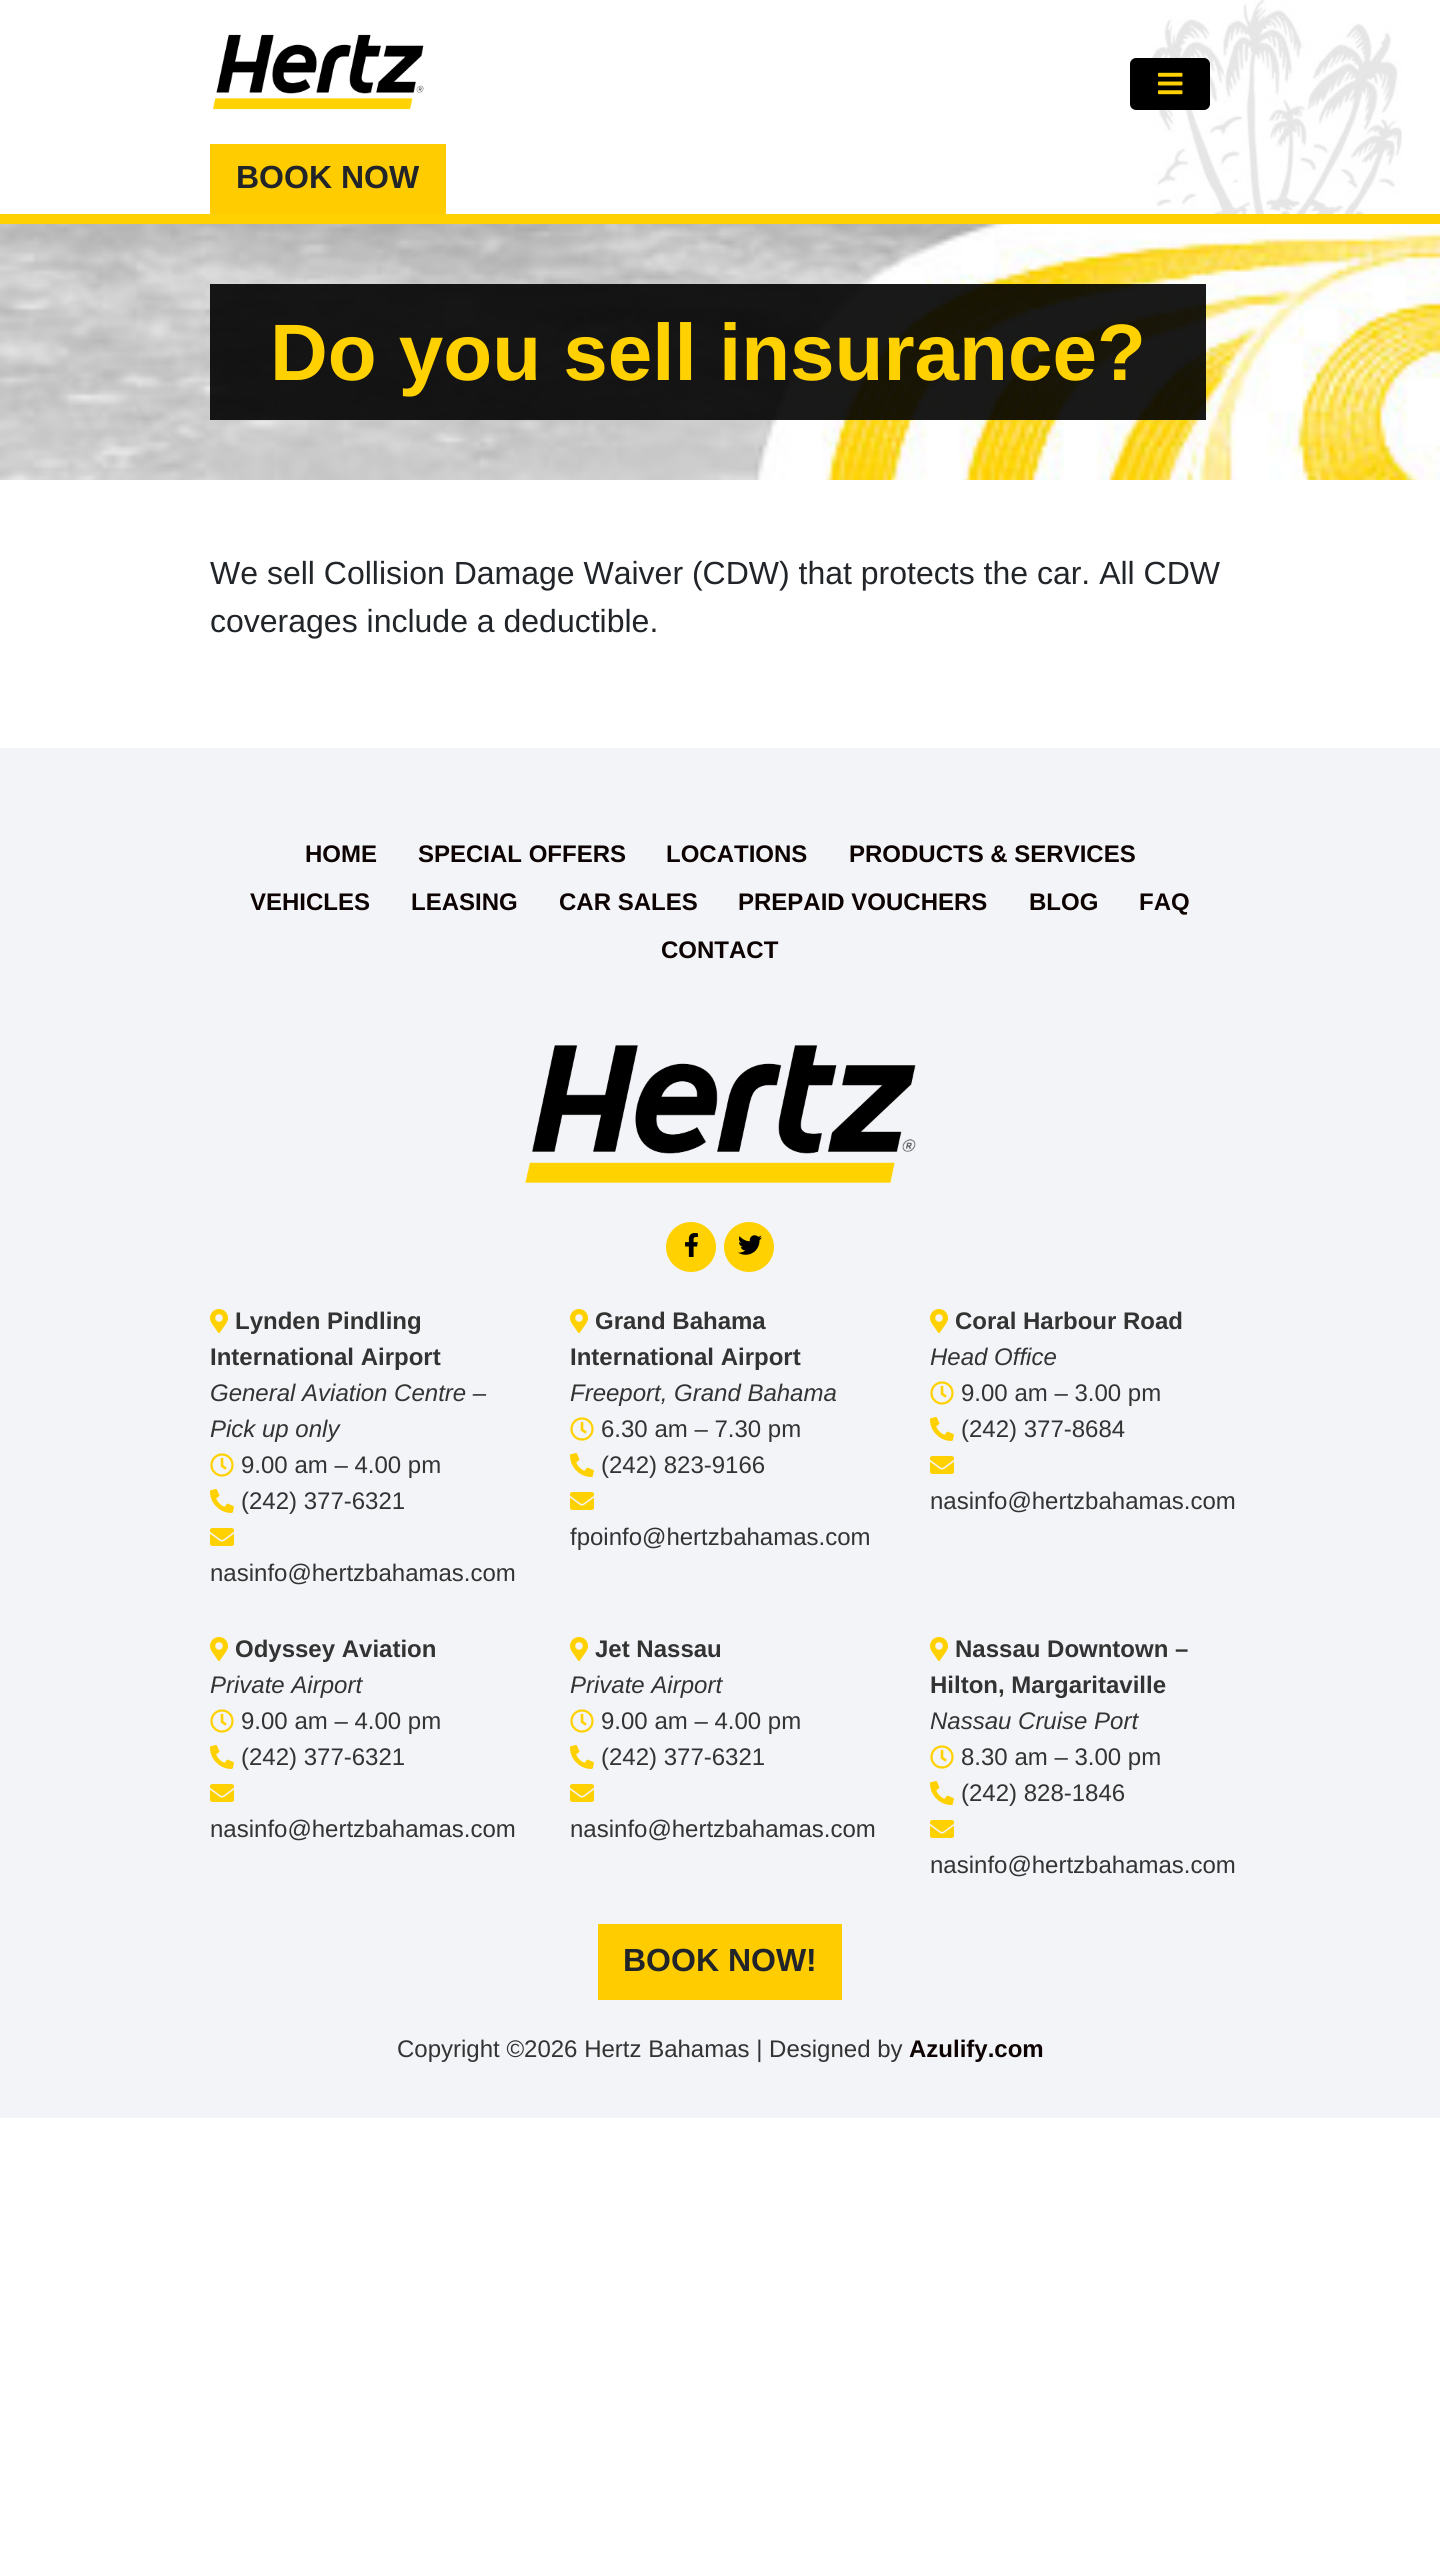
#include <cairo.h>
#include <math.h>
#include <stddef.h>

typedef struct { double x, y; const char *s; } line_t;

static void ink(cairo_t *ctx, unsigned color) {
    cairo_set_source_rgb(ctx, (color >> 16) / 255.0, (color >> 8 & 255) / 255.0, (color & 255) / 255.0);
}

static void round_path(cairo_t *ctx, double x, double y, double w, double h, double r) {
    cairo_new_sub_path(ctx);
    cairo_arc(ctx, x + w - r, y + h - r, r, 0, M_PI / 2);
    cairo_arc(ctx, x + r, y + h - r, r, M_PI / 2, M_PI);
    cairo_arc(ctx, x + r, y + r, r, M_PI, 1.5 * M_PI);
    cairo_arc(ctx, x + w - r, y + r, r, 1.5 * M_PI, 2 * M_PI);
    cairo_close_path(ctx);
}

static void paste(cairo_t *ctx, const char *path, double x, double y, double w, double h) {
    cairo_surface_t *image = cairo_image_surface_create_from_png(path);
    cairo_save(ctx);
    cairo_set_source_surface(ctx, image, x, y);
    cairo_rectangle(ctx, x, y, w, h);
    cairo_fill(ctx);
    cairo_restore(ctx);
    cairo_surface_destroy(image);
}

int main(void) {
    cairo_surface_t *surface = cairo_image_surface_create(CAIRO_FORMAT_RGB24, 1440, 2573);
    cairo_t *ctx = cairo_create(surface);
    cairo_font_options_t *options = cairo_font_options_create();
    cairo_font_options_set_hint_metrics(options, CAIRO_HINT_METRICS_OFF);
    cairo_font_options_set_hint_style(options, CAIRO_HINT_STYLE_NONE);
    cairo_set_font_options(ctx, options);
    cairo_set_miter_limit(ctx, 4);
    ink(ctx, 0xFFFFFF);
    cairo_paint(ctx);
    paste(ctx, "media/1.png", 1145, 0, 257, 214);
    ink(ctx, 0xFFD100);
    cairo_rectangle(ctx, 0, 214, 1440, 10);
    cairo_fill(ctx);
    paste(ctx, "media/2.png", 213, 34, 211, 76);
    ink(ctx, 0x000000);
    round_path(ctx, 1132, 60, 76, 48, 4);
    cairo_fill_preserve(ctx);
    cairo_set_line_width(ctx, 4);
    cairo_stroke(ctx);
    paste(ctx, "media/3.png", 1158, 72, 25, 23);
    ink(ctx, 0xFFCC00);
    cairo_rectangle(ctx, 210, 144, 236, 70);
    cairo_fill(ctx);
    cairo_select_font_face(ctx, "Liberation Sans", CAIRO_FONT_SLANT_NORMAL, CAIRO_FONT_WEIGHT_BOLD);
    cairo_set_font_size(ctx, 32);
    ink(ctx, 0x212529);
    cairo_move_to(ctx, 236, 188);
    cairo_show_text(ctx, "BOOK NOW");
    paste(ctx, "media/4.png", 0, 224, 1440, 256);
    cairo_set_source_rgba(ctx, 0, 0, 0, 0.9);
    cairo_rectangle(ctx, 210, 284, 996, 136);
    cairo_fill(ctx);
    cairo_set_font_size(ctx, 80);
    ink(ctx, 0xFFD100);
    cairo_move_to(ctx, 270, 380);
    cairo_show_text(ctx, "Do you sell insurance?");
    cairo_select_font_face(ctx, "Liberation Sans", CAIRO_FONT_SLANT_NORMAL, CAIRO_FONT_WEIGHT_NORMAL);
    cairo_set_font_size(ctx, 32);
    ink(ctx, 0x212529);
    cairo_move_to(ctx, 210, 584);
    cairo_show_text(ctx, "We sell Collision Damage Waiver (CDW) that protects the car. All CDW");
    cairo_move_to(ctx, 210, 632);
    cairo_show_text(ctx, "coverages include a deductible.");
    ink(ctx, 0xF3F4F8);
    cairo_rectangle(ctx, 0, 748, 1440, 1370);
    cairo_fill(ctx);
    cairo_select_font_face(ctx, "Liberation Sans", CAIRO_FONT_SLANT_NORMAL, CAIRO_FONT_WEIGHT_BOLD);
    cairo_set_font_size(ctx, 24);
    ink(ctx, 0x0E0303);
    {
        static const line_t items[] = {
            {305, 862, "HOME"},
            {418, 862, "SPECIAL OFFERS"},
            {666, 862, "LOCATIONS"},
            {849, 862, "PRODUCTS & SERVICES"},
            {250, 910, "VEHICLES"},
            {411, 910, "LEASING"},
            {559, 910, "CAR SALES"},
            {738, 910, "PREPAID VOUCHERS"},
            {1029, 910, "BLOG"},
            {1139, 910, "FAQ"},
            {661, 958, "CONTACT"},
        };
        for (size_t i = 0; i < sizeof items / sizeof *items; i++) {
            cairo_move_to(ctx, items[i].x, items[i].y);
            cairo_show_text(ctx, items[i].s);
        }
    }
    paste(ctx, "media/5.png", 525, 1045, 391, 138);
    ink(ctx, 0xFFD100);
    cairo_arc(ctx, 691, 1247, 25, 0, 2 * M_PI);
    cairo_fill(ctx);
    paste(ctx, "media/6.png", 685, 1233, 13, 24);
    cairo_arc(ctx, 749, 1247, 25, 0, 2 * M_PI);
    cairo_fill(ctx);
    paste(ctx, "media/7.png", 738, 1235, 24, 20);
    paste(ctx, "media/8.png", 210, 1309, 18, 24);
    ink(ctx, 0x333333);
    cairo_move_to(ctx, 235, 1329);
    cairo_show_text(ctx, "Lynden Pindling");
    cairo_move_to(ctx, 210, 1365);
    cairo_show_text(ctx, "International Airport");
    cairo_select_font_face(ctx, "Liberation Sans", CAIRO_FONT_SLANT_ITALIC, CAIRO_FONT_WEIGHT_NORMAL);
    cairo_move_to(ctx, 210, 1401);
    cairo_show_text(ctx, "General Aviation Centre –");
    cairo_move_to(ctx, 210, 1437);
    cairo_show_text(ctx, "Pick up only");
    paste(ctx, "media/9.png", 210, 1453, 24, 24);
    cairo_select_font_face(ctx, "Liberation Sans", CAIRO_FONT_SLANT_NORMAL, CAIRO_FONT_WEIGHT_NORMAL);
    cairo_move_to(ctx, 241, 1473);
    cairo_show_text(ctx, "9.00 am – 4.00 pm");
    paste(ctx, "media/10.png", 210, 1489, 24, 24);
    cairo_move_to(ctx, 241, 1509);
    cairo_show_text(ctx, "(242) 377-6321");
    paste(ctx, "media/11.png", 210, 1528, 24, 18);
    cairo_move_to(ctx, 210, 1581);
    cairo_show_text(ctx, "nasinfo@hertzbahamas.com");
    paste(ctx, "media/8.png", 570, 1309, 18, 24);
    cairo_select_font_face(ctx, "Liberation Sans", CAIRO_FONT_SLANT_NORMAL, CAIRO_FONT_WEIGHT_BOLD);
    cairo_move_to(ctx, 595, 1329);
    cairo_show_text(ctx, "Grand Bahama");
    cairo_move_to(ctx, 570, 1365);
    cairo_show_text(ctx, "International Airport");
    cairo_select_font_face(ctx, "Liberation Sans", CAIRO_FONT_SLANT_ITALIC, CAIRO_FONT_WEIGHT_NORMAL);
    cairo_move_to(ctx, 570, 1401);
    cairo_show_text(ctx, "Freeport, Grand Bahama");
    paste(ctx, "media/9.png", 570, 1417, 24, 24);
    cairo_select_font_face(ctx, "Liberation Sans", CAIRO_FONT_SLANT_NORMAL, CAIRO_FONT_WEIGHT_NORMAL);
    cairo_move_to(ctx, 601, 1437);
    cairo_show_text(ctx, "6.30 am – 7.30 pm");
    paste(ctx, "media/10.png", 570, 1453, 24, 24);
    cairo_move_to(ctx, 601, 1473);
    cairo_show_text(ctx, "(242) 823-9166");
    paste(ctx, "media/11.png", 570, 1492, 24, 18);
    cairo_move_to(ctx, 570, 1545);
    cairo_show_text(ctx, "fpoinfo@hertzbahamas.com");
    paste(ctx, "media/8.png", 930, 1309, 18, 24);
    cairo_select_font_face(ctx, "Liberation Sans", CAIRO_FONT_SLANT_NORMAL, CAIRO_FONT_WEIGHT_BOLD);
    cairo_move_to(ctx, 955, 1329);
    cairo_show_text(ctx, "Coral Harbour Road");
    cairo_select_font_face(ctx, "Liberation Sans", CAIRO_FONT_SLANT_ITALIC, CAIRO_FONT_WEIGHT_NORMAL);
    cairo_move_to(ctx, 930, 1365);
    cairo_show_text(ctx, "Head Office");
    paste(ctx, "media/9.png", 930, 1381, 24, 24);
    cairo_select_font_face(ctx, "Liberation Sans", CAIRO_FONT_SLANT_NORMAL, CAIRO_FONT_WEIGHT_NORMAL);
    cairo_move_to(ctx, 961, 1401);
    cairo_show_text(ctx, "9.00 am – 3.00 pm");
    paste(ctx, "media/10.png", 930, 1417, 24, 24);
    cairo_move_to(ctx, 961, 1437);
    cairo_show_text(ctx, "(242) 377-8684");
    paste(ctx, "media/11.png", 930, 1456, 24, 18);
    cairo_move_to(ctx, 930, 1509);
    cairo_show_text(ctx, "nasinfo@hertzbahamas.com");
    paste(ctx, "media/8.png", 210, 1637, 18, 24);
    cairo_select_font_face(ctx, "Liberation Sans", CAIRO_FONT_SLANT_NORMAL, CAIRO_FONT_WEIGHT_BOLD);
    cairo_move_to(ctx, 235, 1657);
    cairo_show_text(ctx, "Odyssey Aviation");
    cairo_select_font_face(ctx, "Liberation Sans", CAIRO_FONT_SLANT_ITALIC, CAIRO_FONT_WEIGHT_NORMAL);
    cairo_move_to(ctx, 210, 1693);
    cairo_show_text(ctx, "Private Airport");
    paste(ctx, "media/9.png", 210, 1709, 24, 24);
    cairo_select_font_face(ctx, "Liberation Sans", CAIRO_FONT_SLANT_NORMAL, CAIRO_FONT_WEIGHT_NORMAL);
    cairo_move_to(ctx, 241, 1729);
    cairo_show_text(ctx, "9.00 am – 4.00 pm");
    paste(ctx, "media/10.png", 210, 1745, 24, 24);
    cairo_move_to(ctx, 241, 1765);
    cairo_show_text(ctx, "(242) 377-6321");
    paste(ctx, "media/11.png", 210, 1784, 24, 18);
    cairo_move_to(ctx, 210, 1837);
    cairo_show_text(ctx, "nasinfo@hertzbahamas.com");
    paste(ctx, "media/8.png", 570, 1637, 18, 24);
    cairo_select_font_face(ctx, "Liberation Sans", CAIRO_FONT_SLANT_NORMAL, CAIRO_FONT_WEIGHT_BOLD);
    cairo_move_to(ctx, 595, 1657);
    cairo_show_text(ctx, "Jet Nassau");
    cairo_select_font_face(ctx, "Liberation Sans", CAIRO_FONT_SLANT_ITALIC, CAIRO_FONT_WEIGHT_NORMAL);
    cairo_move_to(ctx, 570, 1693);
    cairo_show_text(ctx, "Private Airport");
    paste(ctx, "media/9.png", 570, 1709, 24, 24);
    cairo_select_font_face(ctx, "Liberation Sans", CAIRO_FONT_SLANT_NORMAL, CAIRO_FONT_WEIGHT_NORMAL);
    cairo_move_to(ctx, 601, 1729);
    cairo_show_text(ctx, "9.00 am – 4.00 pm");
    paste(ctx, "media/10.png", 570, 1745, 24, 24);
    cairo_move_to(ctx, 601, 1765);
    cairo_show_text(ctx, "(242) 377-6321");
    paste(ctx, "media/11.png", 570, 1784, 24, 18);
    cairo_move_to(ctx, 570, 1837);
    cairo_show_text(ctx, "nasinfo@hertzbahamas.com");
    paste(ctx, "media/8.png", 930, 1637, 18, 24);
    cairo_select_font_face(ctx, "Liberation Sans", CAIRO_FONT_SLANT_NORMAL, CAIRO_FONT_WEIGHT_BOLD);
    cairo_move_to(ctx, 955, 1657);
    cairo_show_text(ctx, "Nassau Downtown –");
    cairo_move_to(ctx, 930, 1693);
    cairo_show_text(ctx, "Hilton, Margaritaville");
    cairo_select_font_face(ctx, "Liberation Sans", CAIRO_FONT_SLANT_ITALIC, CAIRO_FONT_WEIGHT_NORMAL);
    cairo_move_to(ctx, 930, 1729);
    cairo_show_text(ctx, "Nassau Cruise Port");
    paste(ctx, "media/9.png", 930, 1745, 24, 24);
    cairo_select_font_face(ctx, "Liberation Sans", CAIRO_FONT_SLANT_NORMAL, CAIRO_FONT_WEIGHT_NORMAL);
    cairo_move_to(ctx, 961, 1765);
    cairo_show_text(ctx, "8.30 am – 3.00 pm");
    paste(ctx, "media/10.png", 930, 1781, 24, 24);
    cairo_move_to(ctx, 961, 1801);
    cairo_show_text(ctx, "(242) 828-1846");
    paste(ctx, "media/11.png", 930, 1820, 24, 18);
    cairo_move_to(ctx, 930, 1873);
    cairo_show_text(ctx, "nasinfo@hertzbahamas.com");
    ink(ctx, 0xFFCC00);
    cairo_rectangle(ctx, 598, 1924, 244, 76);
    cairo_fill(ctx);
    cairo_select_font_face(ctx, "Liberation Sans", CAIRO_FONT_SLANT_NORMAL, CAIRO_FONT_WEIGHT_BOLD);
    cairo_set_font_size(ctx, 32);
    ink(ctx, 0x212529);
    cairo_move_to(ctx, 623, 1971);
    cairo_show_text(ctx, "BOOK NOW!");
    cairo_select_font_face(ctx, "Liberation Sans", CAIRO_FONT_SLANT_NORMAL, CAIRO_FONT_WEIGHT_NORMAL);
    cairo_set_font_size(ctx, 24);
    ink(ctx, 0x333333);
    cairo_move_to(ctx, 397, 2057);
    cairo_show_text(ctx, "Copyright ©2026 Hertz Bahamas | Designed by");
    cairo_select_font_face(ctx, "Liberation Sans", CAIRO_FONT_SLANT_NORMAL, CAIRO_FONT_WEIGHT_BOLD);
    ink(ctx, 0x0E0303);
    cairo_move_to(ctx, 909, 2057);
    cairo_show_text(ctx, "Azulify.com");
    cairo_surface_write_to_png(surface, "image.png");
    cairo_font_options_destroy(options);
    cairo_destroy(ctx);
    cairo_surface_destroy(surface);
    return 0;
}
